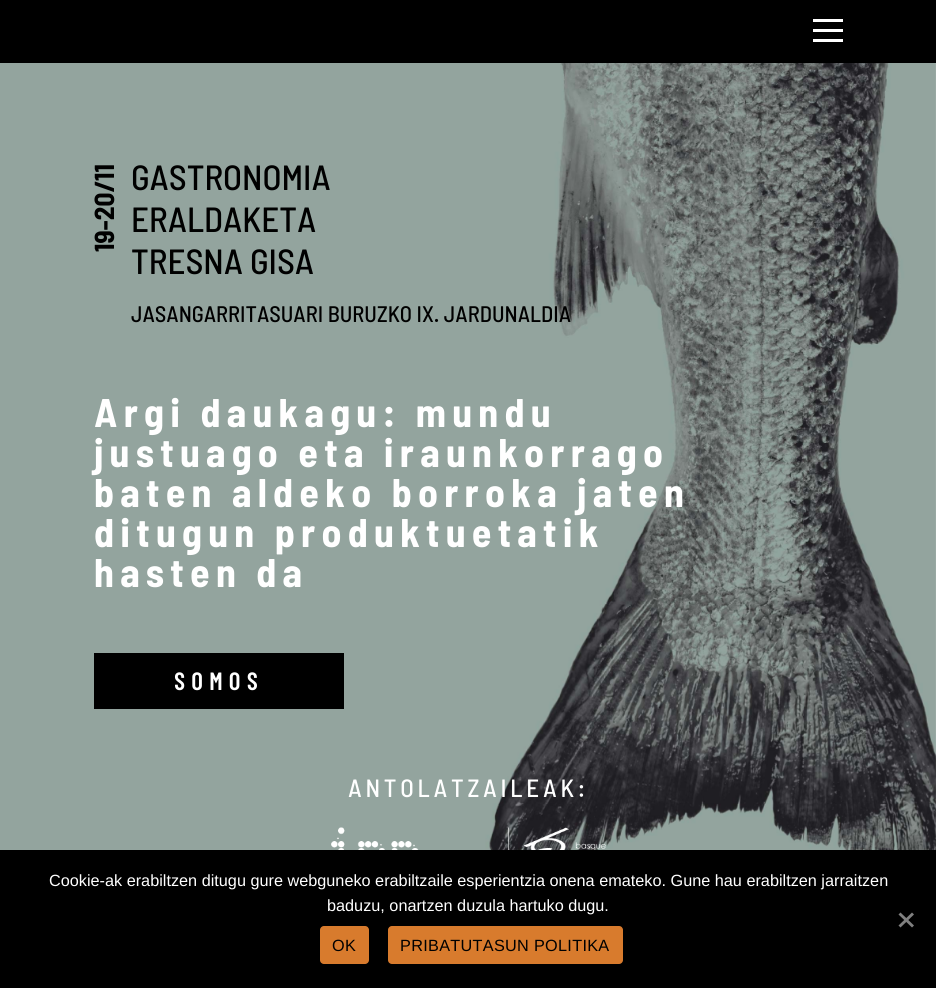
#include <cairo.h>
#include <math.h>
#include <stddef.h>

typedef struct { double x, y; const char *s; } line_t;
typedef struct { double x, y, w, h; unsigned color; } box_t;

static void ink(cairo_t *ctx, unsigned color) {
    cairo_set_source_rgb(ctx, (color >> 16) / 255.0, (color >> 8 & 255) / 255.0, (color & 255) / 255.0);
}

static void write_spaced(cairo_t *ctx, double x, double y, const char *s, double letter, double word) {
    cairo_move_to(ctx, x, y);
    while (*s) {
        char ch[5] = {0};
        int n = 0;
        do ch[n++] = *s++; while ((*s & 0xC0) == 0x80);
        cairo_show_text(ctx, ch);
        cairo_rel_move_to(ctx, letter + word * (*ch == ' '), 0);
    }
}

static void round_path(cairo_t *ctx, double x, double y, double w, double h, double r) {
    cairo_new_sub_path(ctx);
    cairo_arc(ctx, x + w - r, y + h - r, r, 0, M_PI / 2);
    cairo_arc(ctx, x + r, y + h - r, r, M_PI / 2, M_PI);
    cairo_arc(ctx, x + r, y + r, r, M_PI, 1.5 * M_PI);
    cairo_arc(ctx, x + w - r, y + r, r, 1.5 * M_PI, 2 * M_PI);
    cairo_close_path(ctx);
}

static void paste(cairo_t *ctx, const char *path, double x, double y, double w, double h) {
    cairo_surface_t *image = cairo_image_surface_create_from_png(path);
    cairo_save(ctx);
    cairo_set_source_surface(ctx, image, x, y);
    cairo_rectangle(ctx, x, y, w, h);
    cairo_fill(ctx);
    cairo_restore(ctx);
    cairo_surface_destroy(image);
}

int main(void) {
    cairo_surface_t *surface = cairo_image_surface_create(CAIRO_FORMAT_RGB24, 936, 988);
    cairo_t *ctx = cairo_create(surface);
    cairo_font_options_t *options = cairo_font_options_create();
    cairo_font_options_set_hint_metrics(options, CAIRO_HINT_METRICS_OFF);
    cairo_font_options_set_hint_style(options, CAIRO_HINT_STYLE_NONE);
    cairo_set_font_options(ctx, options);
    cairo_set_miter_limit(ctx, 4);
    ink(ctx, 0xFFFFFF);
    cairo_paint(ctx);
    {
        static const box_t items[] = {
            {0, 0, 936, 63, 0x000000},
            {813, 19, 30, 3, 0xFFFFFF},
            {813, 29, 30, 3, 0xFFFFFF},
            {813, 39, 30, 3, 0xFFFFFF},
        };
        for (size_t i = 0; i < sizeof items / sizeof *items; i++) {
            ink(ctx, items[i].color);
            cairo_rectangle(ctx, items[i].x, items[i].y, items[i].w, items[i].h);
            cairo_fill(ctx);
        }
    }
    paste(ctx, "media/1.png", 0, 63, 936, 787);
    cairo_select_font_face(ctx, "Barlow Semi Condensed", CAIRO_FONT_SLANT_NORMAL, CAIRO_FONT_WEIGHT_BOLD);
    cairo_set_font_size(ctx, 27.5);
    ink(ctx, 0x000000);
    cairo_save(ctx);
    cairo_translate(ctx, 114, 252);
    cairo_rotate(ctx, -90 * M_PI / 180);
    cairo_move_to(ctx, 0, 0);
    cairo_show_text(ctx, "19-20/11");
    cairo_restore(ctx);
    cairo_select_font_face(ctx, "Barlow Semi Condensed Medium", CAIRO_FONT_SLANT_NORMAL, CAIRO_FONT_WEIGHT_NORMAL);
    cairo_set_font_size(ctx, 35);
    {
        static const line_t items[] = {
            {131, 190, "GASTRONOMIA"},
            {131, 232, "ERALDAKETA"},
            {131, 274, "TRESNA GISA"},
        };
        for (size_t i = 0; i < sizeof items / sizeof *items; i++) {
            cairo_move_to(ctx, items[i].x, items[i].y);
            cairo_show_text(ctx, items[i].s);
        }
    }
    cairo_set_font_size(ctx, 22.5);
    cairo_move_to(ctx, 131, 322);
    cairo_show_text(ctx, "JASANGARRITASUARI BURUZKO IX. JARDUNALDIA");
    cairo_select_font_face(ctx, "Barlow Semi Condensed", CAIRO_FONT_SLANT_NORMAL, CAIRO_FONT_WEIGHT_BOLD);
    cairo_set_font_size(ctx, 40);
    ink(ctx, 0xFFFFFF);
    {
        static const line_t items[] = {
            {94, 427, "Argi daukagu: mundu"},
            {94, 467, "justuago eta iraunkorrago"},
            {94, 507, "baten aldeko borroka jaten"},
            {94, 547, "ditugun produktuetatik"},
            {94, 587, "hasten da"},
        };
        for (size_t i = 0; i < sizeof items / sizeof *items; i++) {
            write_spaced(ctx, items[i].x, items[i].y, items[i].s, 6.25, 0);
        }
    }
    ink(ctx, 0x000000);
    cairo_rectangle(ctx, 94, 653, 250, 56);
    cairo_fill(ctx);
    cairo_select_font_face(ctx, "Barlow Condensed SemiBold", CAIRO_FONT_SLANT_NORMAL, CAIRO_FONT_WEIGHT_NORMAL);
    cairo_set_font_size(ctx, 25);
    ink(ctx, 0xFFFFFF);
    write_spaced(ctx, 174, 690, "SOMOS", 6.25, 0);
    cairo_select_font_face(ctx, "Barlow Semi Condensed Medium", CAIRO_FONT_SLANT_NORMAL, CAIRO_FONT_WEIGHT_NORMAL);
    write_spaced(ctx, 348, 797, "ANTOLATZAILEAK:", 3.75, 0);
    paste(ctx, "media/2.png", 331, 827, 275, 23);
    ink(ctx, 0x000000);
    cairo_rectangle(ctx, 0, 850, 936, 138);
    cairo_fill(ctx);
    cairo_select_font_face(ctx, "Liberation Sans", CAIRO_FONT_SLANT_NORMAL, CAIRO_FONT_WEIGHT_NORMAL);
    cairo_set_font_size(ctx, 16.25);
    ink(ctx, 0xFFFFFF);
    cairo_move_to(ctx, 49, 886);
    cairo_show_text(ctx, "Cookie-ak erabiltzen ditugu gure webguneko erabiltzaile esperientzia onena emateko. Gune hau erabiltzen jarraitzen");
    cairo_move_to(ctx, 327, 911);
    cairo_show_text(ctx, "baduzu, onartzen duzula hartuko dugu.");
    ink(ctx, 0x808080);
    cairo_new_path(ctx);
    cairo_move_to(ctx, 912, 912.5);
    cairo_line_to(ctx, 914, 914.5);
    cairo_line_to(ctx, 900.5, 927.5);
    cairo_line_to(ctx, 898.5, 925.5);
    cairo_close_path(ctx);
    cairo_fill(ctx);
    cairo_new_path(ctx);
    cairo_move_to(ctx, 898.5, 914.5);
    cairo_line_to(ctx, 900.5, 912.5);
    cairo_line_to(ctx, 914, 925.5);
    cairo_line_to(ctx, 912, 927.5);
    cairo_close_path(ctx);
    cairo_fill(ctx);
    ink(ctx, 0xD87B2D);
    round_path(ctx, 320, 926, 49, 38, 4);
    cairo_fill(ctx);
    ink(ctx, 0x000000);
    write_spaced(ctx, 332, 951, "OK", 0.3, 0);
    ink(ctx, 0xD87B2D);
    round_path(ctx, 388, 926, 235, 38, 4);
    cairo_fill(ctx);
    ink(ctx, 0x000000);
    write_spaced(ctx, 400, 951, "PRIBATUTASUN POLITIKA", 0.3, 0);
    cairo_surface_write_to_png(surface, "image.png");
    cairo_font_options_destroy(options);
    cairo_destroy(ctx);
    cairo_surface_destroy(surface);
    return 0;
}
